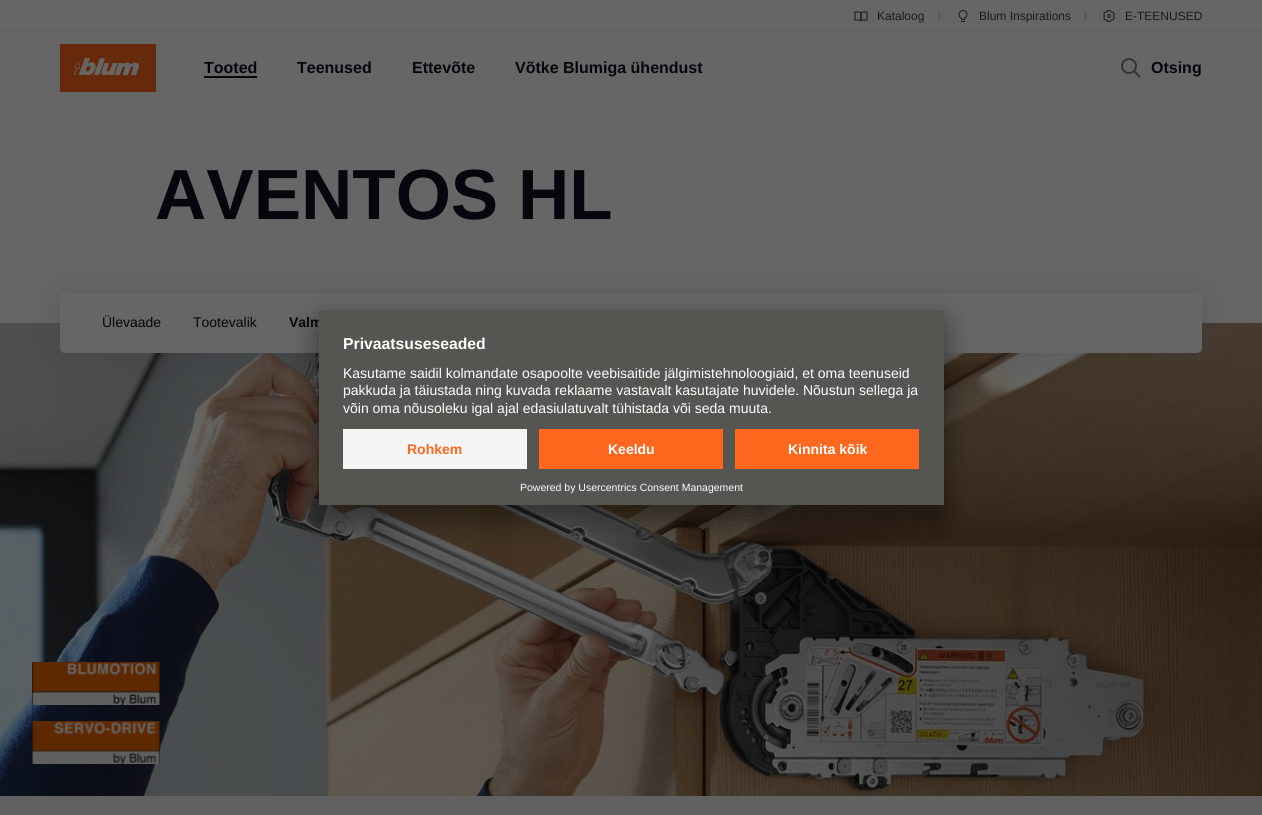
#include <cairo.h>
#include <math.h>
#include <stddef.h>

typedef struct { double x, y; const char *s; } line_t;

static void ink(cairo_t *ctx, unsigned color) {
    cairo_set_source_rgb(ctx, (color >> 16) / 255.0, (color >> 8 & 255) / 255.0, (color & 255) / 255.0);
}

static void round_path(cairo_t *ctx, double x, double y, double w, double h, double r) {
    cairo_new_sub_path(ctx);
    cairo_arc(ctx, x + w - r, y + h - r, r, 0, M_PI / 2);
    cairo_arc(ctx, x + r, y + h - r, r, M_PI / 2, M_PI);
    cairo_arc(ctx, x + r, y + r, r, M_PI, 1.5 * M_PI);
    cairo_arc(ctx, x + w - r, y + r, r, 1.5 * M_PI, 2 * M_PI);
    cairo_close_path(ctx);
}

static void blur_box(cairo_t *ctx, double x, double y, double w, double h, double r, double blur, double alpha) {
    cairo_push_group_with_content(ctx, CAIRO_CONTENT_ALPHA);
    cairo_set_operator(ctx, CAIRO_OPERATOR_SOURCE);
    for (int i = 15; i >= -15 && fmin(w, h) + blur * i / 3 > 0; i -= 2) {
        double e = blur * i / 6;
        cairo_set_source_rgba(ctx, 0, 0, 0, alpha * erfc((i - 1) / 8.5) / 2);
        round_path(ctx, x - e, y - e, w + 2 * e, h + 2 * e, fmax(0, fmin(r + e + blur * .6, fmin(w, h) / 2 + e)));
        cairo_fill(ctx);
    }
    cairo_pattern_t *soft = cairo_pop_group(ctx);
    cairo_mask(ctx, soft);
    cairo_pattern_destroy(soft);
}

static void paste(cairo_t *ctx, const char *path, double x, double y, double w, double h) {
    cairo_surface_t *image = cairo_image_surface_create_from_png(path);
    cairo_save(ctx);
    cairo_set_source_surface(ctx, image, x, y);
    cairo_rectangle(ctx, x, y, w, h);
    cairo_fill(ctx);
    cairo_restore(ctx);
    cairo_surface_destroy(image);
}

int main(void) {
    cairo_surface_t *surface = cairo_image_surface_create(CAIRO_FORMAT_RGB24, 1262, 815);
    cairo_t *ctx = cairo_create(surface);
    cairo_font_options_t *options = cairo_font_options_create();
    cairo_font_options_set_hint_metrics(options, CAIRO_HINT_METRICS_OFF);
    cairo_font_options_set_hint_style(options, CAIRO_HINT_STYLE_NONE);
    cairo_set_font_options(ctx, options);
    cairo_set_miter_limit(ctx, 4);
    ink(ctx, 0x666666);
    cairo_paint(ctx);
    ink(ctx, 0x616161);
    cairo_rectangle(ctx, 0, 31, 1262, 1);
    cairo_fill(ctx);
    paste(ctx, "media/1.png", 854, 11, 14, 11);
    cairo_select_font_face(ctx, "Liberation Sans", CAIRO_FONT_SLANT_NORMAL, CAIRO_FONT_WEIGHT_NORMAL);
    cairo_set_font_size(ctx, 12);
    ink(ctx, 0x191A1E);
    cairo_move_to(ctx, 877, 20);
    cairo_show_text(ctx, "Kataloog");
    ink(ctx, 0x535354);
    cairo_rectangle(ctx, 939, 11, 1, 10);
    cairo_fill(ctx);
    paste(ctx, "media/2.png", 958, 10, 10, 12);
    ink(ctx, 0x191A1E);
    cairo_move_to(ctx, 979, 20);
    cairo_show_text(ctx, "Blum Inspirations");
    ink(ctx, 0x535354);
    cairo_rectangle(ctx, 1085, 11, 1, 10);
    cairo_fill(ctx);
    paste(ctx, "media/3.png", 1103, 10, 12, 12);
    ink(ctx, 0x191A1E);
    cairo_move_to(ctx, 1125, 20);
    cairo_show_text(ctx, "E-TEENUSED");
    paste(ctx, "media/4.png", 60, 44, 96, 48);
    cairo_select_font_face(ctx, "Liberation Sans", CAIRO_FONT_SLANT_NORMAL, CAIRO_FONT_WEIGHT_BOLD);
    cairo_set_font_size(ctx, 16);
    ink(ctx, 0x06060C);
    cairo_move_to(ctx, 204, 73);
    cairo_show_text(ctx, "Tooted");
    cairo_rectangle(ctx, 204, 76, 53, 2);
    cairo_fill(ctx);
    {
        static const line_t items[] = {
            {297, 73, "Teenused"},
            {412, 73, "Ettevõte"},
            {515, 73, "Võtke Blumiga ühendust"},
        };
        for (size_t i = 0; i < sizeof items / sizeof *items; i++) {
            cairo_move_to(ctx, items[i].x, items[i].y);
            cairo_show_text(ctx, items[i].s);
        }
    }
    cairo_new_path(ctx);
    cairo_arc(ctx, 1129, 66, 7, 0, 2 * M_PI);
    ink(ctx, 0x323437);
    cairo_stroke(ctx);
    cairo_new_path(ctx);
    cairo_move_to(ctx, 1134, 71);
    cairo_line_to(ctx, 1140, 77);
    cairo_stroke(ctx);
    ink(ctx, 0x06060C);
    cairo_move_to(ctx, 1151, 73);
    cairo_show_text(ctx, "Otsing");
    cairo_set_font_size(ctx, 71);
    cairo_move_to(ctx, 155, 219);
    cairo_show_text(ctx, "AVENTOS HL");
    paste(ctx, "media/5.png", 0, 323, 1262, 473);
    ink(ctx, 0x323438);
    blur_box(ctx, 60, 293, 1142, 60, 5, 17.5, 0.25);
    ink(ctx, 0x666666);
    round_path(ctx, 60, 293, 1142, 60, 5);
    cairo_fill(ctx);
    cairo_select_font_face(ctx, "Liberation Sans", CAIRO_FONT_SLANT_NORMAL, CAIRO_FONT_WEIGHT_NORMAL);
    cairo_set_font_size(ctx, 14);
    ink(ctx, 0x06060C);
    cairo_move_to(ctx, 102, 327);
    cairo_show_text(ctx, "Ülevaade");
    cairo_move_to(ctx, 193, 327);
    cairo_show_text(ctx, "Tootevalik");
    cairo_select_font_face(ctx, "Liberation Sans", CAIRO_FONT_SLANT_NORMAL, CAIRO_FONT_WEIGHT_BOLD);
    cairo_move_to(ctx, 289, 327);
    cairo_show_text(ctx, "Valm");
    paste(ctx, "media/6.png", 32, 662, 128, 43);
    paste(ctx, "media/7.png", 32, 721, 128, 43);
    ink(ctx, 0x616161);
    cairo_rectangle(ctx, 0, 796, 1262, 19);
    cairo_fill(ctx);
    ink(ctx, 0x000000);
    blur_box(ctx, 319, 330, 625, 195, 0, 14, 0.3);
    blur_box(ctx, 319, 315, 625, 195, 0, 13, 0.22);
    ink(ctx, 0x555552);
    cairo_rectangle(ctx, 319, 310, 625, 195);
    cairo_fill(ctx);
    cairo_set_font_size(ctx, 15.75);
    ink(ctx, 0xFFFFFF);
    cairo_move_to(ctx, 343, 349);
    cairo_show_text(ctx, "Privaatsuseseaded");
    cairo_select_font_face(ctx, "Liberation Sans", CAIRO_FONT_SLANT_NORMAL, CAIRO_FONT_WEIGHT_NORMAL);
    cairo_set_font_size(ctx, 14);
    {
        static const line_t items[] = {
            {343, 378, "Kasutame saidil kolmandate osapoolte veebisaitide jälgimistehnoloogiaid, et oma teenuseid"},
            {343, 395, "pakkuda ja täiustada ning kuvada reklaame vastavalt kasutajate huvidele. Nõustun sellega ja"},
            {343, 413, "võin oma nõusoleku igal ajal edasiulatuvalt tühistada või seda muuta."},
        };
        for (size_t i = 0; i < sizeof items / sizeof *items; i++) {
            cairo_move_to(ctx, items[i].x, items[i].y);
            cairo_show_text(ctx, items[i].s);
        }
    }
    ink(ctx, 0xF5F5F5);
    cairo_rectangle(ctx, 343, 429, 184, 40);
    cairo_fill(ctx);
    cairo_select_font_face(ctx, "Liberation Sans", CAIRO_FONT_SLANT_NORMAL, CAIRO_FONT_WEIGHT_BOLD);
    ink(ctx, 0xFF671F);
    cairo_move_to(ctx, 407, 454);
    cairo_show_text(ctx, "Rohkem");
    cairo_rectangle(ctx, 539, 429, 184, 40);
    cairo_fill(ctx);
    ink(ctx, 0xFFFFFF);
    cairo_move_to(ctx, 608, 454);
    cairo_show_text(ctx, "Keeldu");
    ink(ctx, 0xFF671F);
    cairo_rectangle(ctx, 735, 429, 184, 40);
    cairo_fill(ctx);
    ink(ctx, 0xFFFFFF);
    cairo_move_to(ctx, 788, 454);
    cairo_show_text(ctx, "Kinnita kõik");
    cairo_select_font_face(ctx, "Liberation Sans", CAIRO_FONT_SLANT_NORMAL, CAIRO_FONT_WEIGHT_NORMAL);
    cairo_set_font_size(ctx, 10.5);
    cairo_move_to(ctx, 520, 491);
    cairo_show_text(ctx, "Powered by Usercentrics Consent Management");
    cairo_surface_write_to_png(surface, "image.png");
    cairo_font_options_destroy(options);
    cairo_destroy(ctx);
    cairo_surface_destroy(surface);
    return 0;
}
